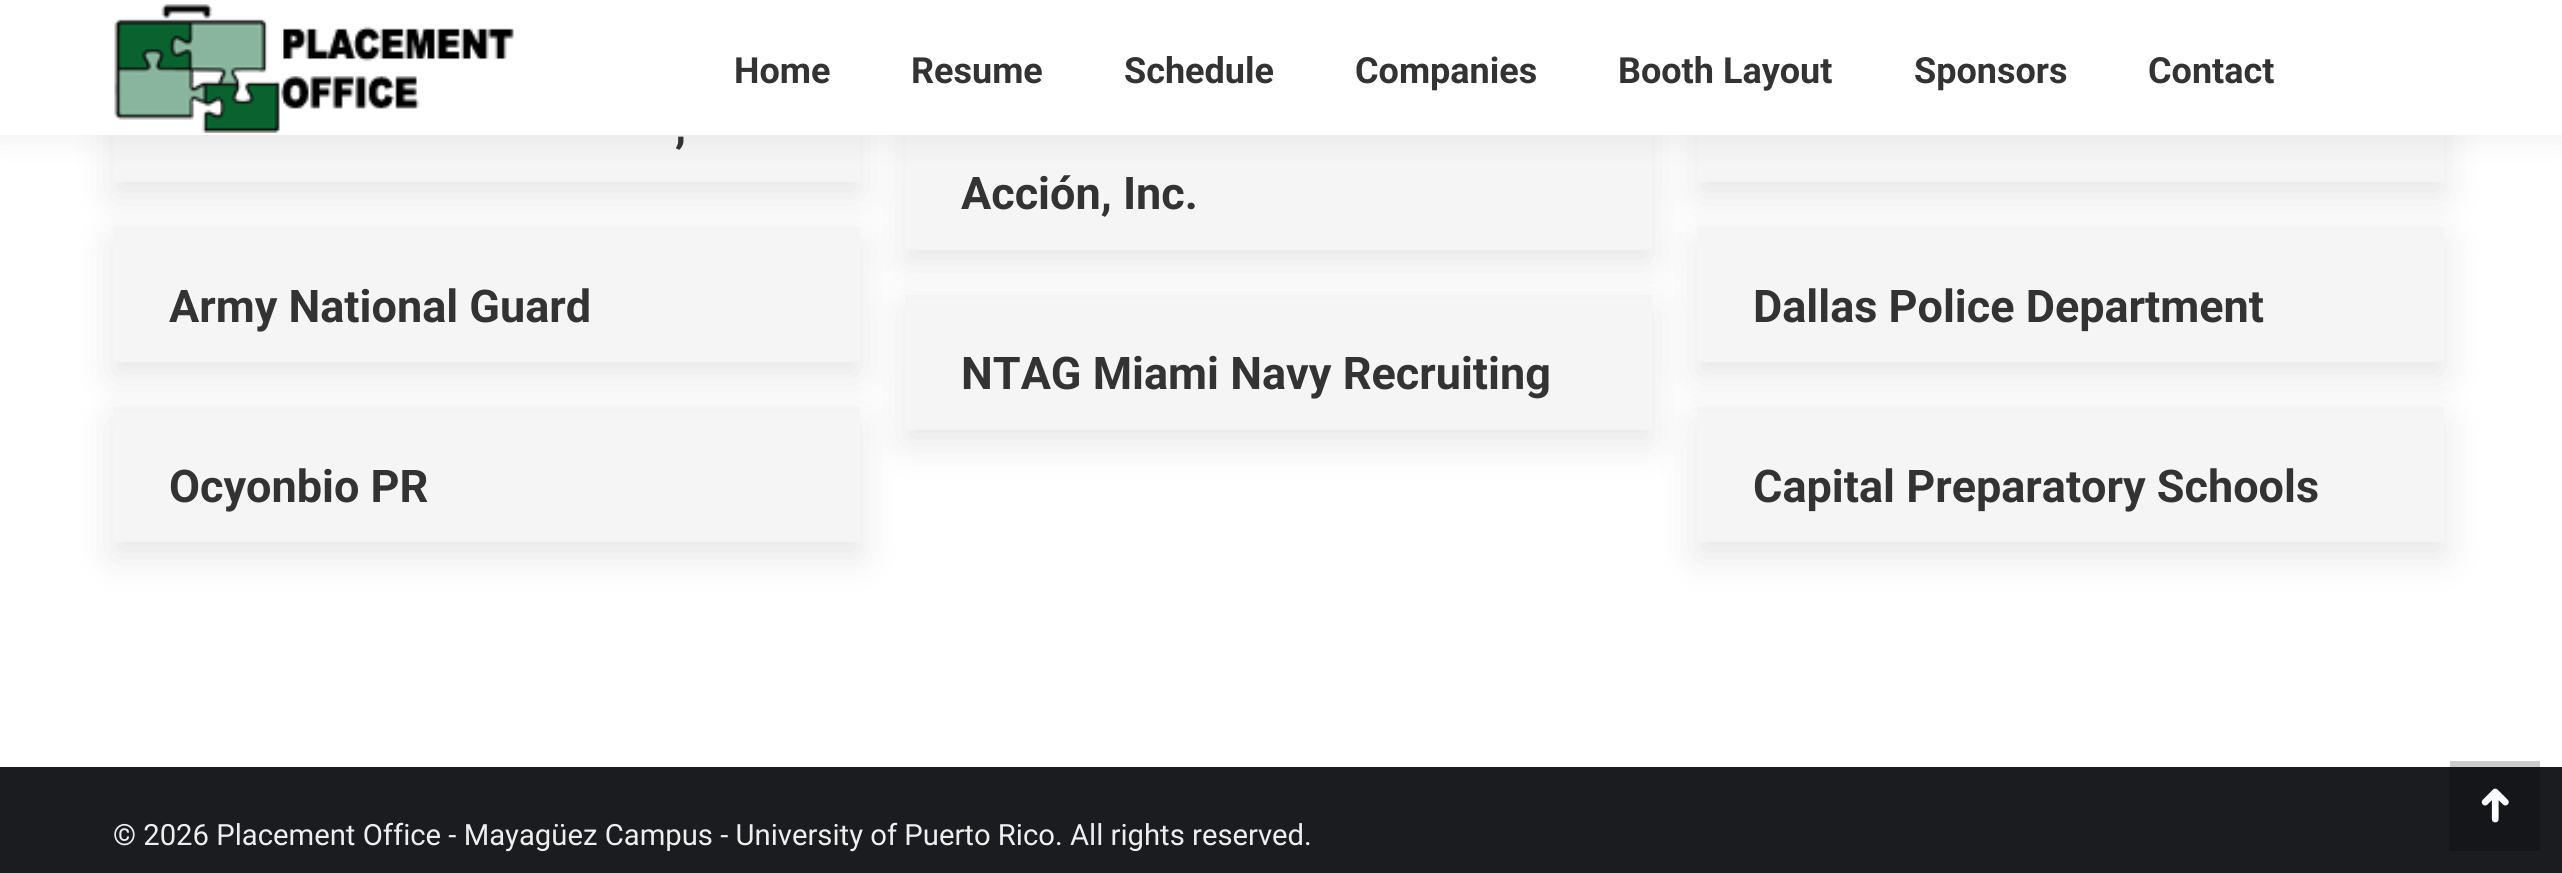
#include <cairo.h>
#include <math.h>
#include <stddef.h>

typedef struct { double x, y; const char *s; } line_t;

static void ink(cairo_t *ctx, unsigned color) {
    cairo_set_source_rgb(ctx, (color >> 16) / 255.0, (color >> 8 & 255) / 255.0, (color & 255) / 255.0);
}

static void round_path(cairo_t *ctx, double x, double y, double w, double h, double r) {
    cairo_new_sub_path(ctx);
    cairo_arc(ctx, x + w - r, y + h - r, r, 0, M_PI / 2);
    cairo_arc(ctx, x + r, y + h - r, r, M_PI / 2, M_PI);
    cairo_arc(ctx, x + r, y + r, r, M_PI, 1.5 * M_PI);
    cairo_arc(ctx, x + w - r, y + r, r, 1.5 * M_PI, 2 * M_PI);
    cairo_close_path(ctx);
}

static void blur_box(cairo_t *ctx, double x, double y, double w, double h, double r, double blur, double alpha) {
    cairo_push_group_with_content(ctx, CAIRO_CONTENT_ALPHA);
    cairo_set_operator(ctx, CAIRO_OPERATOR_SOURCE);
    for (int i = 15; i >= -15 && fmin(w, h) + blur * i / 3 > 0; i -= 2) {
        double e = blur * i / 6;
        cairo_set_source_rgba(ctx, 0, 0, 0, alpha * erfc((i - 1) / 8.5) / 2);
        round_path(ctx, x - e, y - e, w + 2 * e, h + 2 * e, fmax(0, fmin(r + e + blur * .6, fmin(w, h) / 2 + e)));
        cairo_fill(ctx);
    }
    cairo_pattern_t *soft = cairo_pop_group(ctx);
    cairo_mask(ctx, soft);
    cairo_pattern_destroy(soft);
}

static void paste(cairo_t *ctx, const char *path, double x, double y, double w, double h) {
    cairo_surface_t *image = cairo_image_surface_create_from_png(path);
    cairo_save(ctx);
    cairo_set_source_surface(ctx, image, x, y);
    cairo_rectangle(ctx, x, y, w, h);
    cairo_fill(ctx);
    cairo_restore(ctx);
    cairo_surface_destroy(image);
}

int main(void) {
    cairo_surface_t *surface = cairo_image_surface_create(CAIRO_FORMAT_RGB24, 2562, 873);
    cairo_t *ctx = cairo_create(surface);
    cairo_font_options_t *options = cairo_font_options_create();
    cairo_font_options_set_hint_metrics(options, CAIRO_HINT_METRICS_OFF);
    cairo_font_options_set_hint_style(options, CAIRO_HINT_STYLE_NONE);
    cairo_set_font_options(ctx, options);
    cairo_set_miter_limit(ctx, 4);
    ink(ctx, 0xFFFFFF);
    cairo_paint(ctx);
    ink(ctx, 0xCCCCCC);
    cairo_rectangle(ctx, 2450, 761, 90, 6);
    cairo_fill(ctx);
    cairo_save(ctx);
    cairo_set_fill_rule(ctx, CAIRO_FILL_RULE_EVEN_ODD);
    cairo_new_path(ctx);
    cairo_move_to(ctx, 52, 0);
    cairo_line_to(ctx, 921, 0);
    cairo_line_to(ctx, 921, 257);
    cairo_line_to(ctx, 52, 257);
    cairo_close_path(ctx);
    cairo_move_to(ctx, 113, 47);
    cairo_line_to(ctx, 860, 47);
    cairo_line_to(ctx, 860, 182);
    cairo_line_to(ctx, 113, 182);
    cairo_close_path(ctx);
    cairo_clip(ctx);
    ink(ctx, 0x000000);
    blur_box(ctx, 113, 61, 747, 135, 0, 20, 0.1);
    cairo_restore(ctx);
    cairo_set_source_rgba(ctx, 0, 0, 0, 0.04);
    cairo_rectangle(ctx, 113, 135, 747, 47);
    cairo_fill(ctx);
    cairo_save(ctx);
    cairo_set_fill_rule(ctx, CAIRO_FILL_RULE_EVEN_ODD);
    cairo_new_path(ctx);
    cairo_move_to(ctx, 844, 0);
    cairo_line_to(ctx, 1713, 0);
    cairo_line_to(ctx, 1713, 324);
    cairo_line_to(ctx, 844, 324);
    cairo_close_path(ctx);
    cairo_move_to(ctx, 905, 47);
    cairo_line_to(ctx, 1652, 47);
    cairo_line_to(ctx, 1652, 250);
    cairo_line_to(ctx, 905, 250);
    cairo_close_path(ctx);
    cairo_clip(ctx);
    ink(ctx, 0x000000);
    blur_box(ctx, 905, 61, 747, 202, 0, 20, 0.1);
    cairo_restore(ctx);
    cairo_rectangle(ctx, 905, 135, 747, 115);
    cairo_fill(ctx);
    cairo_save(ctx);
    cairo_set_fill_rule(ctx, CAIRO_FILL_RULE_EVEN_ODD);
    cairo_new_path(ctx);
    cairo_move_to(ctx, 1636, 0);
    cairo_line_to(ctx, 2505, 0);
    cairo_line_to(ctx, 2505, 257);
    cairo_line_to(ctx, 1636, 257);
    cairo_close_path(ctx);
    cairo_move_to(ctx, 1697, 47);
    cairo_line_to(ctx, 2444, 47);
    cairo_line_to(ctx, 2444, 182);
    cairo_line_to(ctx, 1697, 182);
    cairo_close_path(ctx);
    cairo_clip(ctx);
    ink(ctx, 0x000000);
    blur_box(ctx, 1697, 61, 747, 135, 0, 20, 0.1);
    cairo_restore(ctx);
    cairo_rectangle(ctx, 1697, 135, 747, 47);
    cairo_fill(ctx);
    ink(ctx, 0x000000);
    blur_box(ctx, -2, -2, 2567, 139, 0, 17, 0.07);
    ink(ctx, 0xFFFFFF);
    cairo_rectangle(ctx, 0, 0, 2562, 135);
    cairo_fill(ctx);
    paste(ctx, "media/1.png", 114, 4, 400, 129);
    cairo_select_font_face(ctx, "Roboto", CAIRO_FONT_SLANT_NORMAL, CAIRO_FONT_WEIGHT_BOLD);
    cairo_set_font_size(ctx, 36);
    ink(ctx, 0x333333);
    {
        static const line_t items[] = {
            {734, 83, "Home"},
            {911, 83, "Resume"},
            {1124, 83, "Schedule"},
            {1355, 83, "Companies"},
            {1618, 83, "Booth Layout"},
            {1914, 83, "Sponsors"},
            {2148, 83, "Contact"},
        };
        for (size_t i = 0; i < sizeof items / sizeof *items; i++) {
            cairo_move_to(ctx, items[i].x, items[i].y);
            cairo_show_text(ctx, items[i].s);
        }
    }
    cairo_set_font_size(ctx, 45);
    cairo_move_to(ctx, 675, 142);
    cairo_show_text(ctx, ",");
    cairo_move_to(ctx, 961, 209);
    cairo_show_text(ctx, "Acción, Inc.");
    cairo_save(ctx);
    cairo_set_fill_rule(ctx, CAIRO_FILL_RULE_EVEN_ODD);
    cairo_new_path(ctx);
    cairo_move_to(ctx, 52, 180);
    cairo_line_to(ctx, 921, 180);
    cairo_line_to(ctx, 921, 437);
    cairo_line_to(ctx, 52, 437);
    cairo_close_path(ctx);
    cairo_move_to(ctx, 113, 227);
    cairo_line_to(ctx, 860, 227);
    cairo_line_to(ctx, 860, 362);
    cairo_line_to(ctx, 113, 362);
    cairo_close_path(ctx);
    cairo_clip(ctx);
    ink(ctx, 0x000000);
    blur_box(ctx, 113, 241, 747, 135, 0, 20, 0.1);
    cairo_restore(ctx);
    cairo_set_source_rgba(ctx, 0, 0, 0, 0.04);
    cairo_rectangle(ctx, 113, 227, 747, 135);
    cairo_fill(ctx);
    ink(ctx, 0x333333);
    cairo_move_to(ctx, 169, 322);
    cairo_show_text(ctx, "Army National Guard");
    cairo_save(ctx);
    cairo_set_fill_rule(ctx, CAIRO_FILL_RULE_EVEN_ODD);
    cairo_new_path(ctx);
    cairo_move_to(ctx, 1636, 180);
    cairo_line_to(ctx, 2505, 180);
    cairo_line_to(ctx, 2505, 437);
    cairo_line_to(ctx, 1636, 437);
    cairo_close_path(ctx);
    cairo_move_to(ctx, 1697, 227);
    cairo_line_to(ctx, 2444, 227);
    cairo_line_to(ctx, 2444, 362);
    cairo_line_to(ctx, 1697, 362);
    cairo_close_path(ctx);
    cairo_clip(ctx);
    ink(ctx, 0x000000);
    blur_box(ctx, 1697, 241, 747, 135, 0, 20, 0.1);
    cairo_restore(ctx);
    cairo_set_source_rgba(ctx, 0, 0, 0, 0.04);
    cairo_rectangle(ctx, 1697, 227, 747, 135);
    cairo_fill(ctx);
    ink(ctx, 0x333333);
    cairo_move_to(ctx, 1753, 322);
    cairo_show_text(ctx, "Dallas Police Department");
    cairo_save(ctx);
    cairo_set_fill_rule(ctx, CAIRO_FILL_RULE_EVEN_ODD);
    cairo_new_path(ctx);
    cairo_move_to(ctx, 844, 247);
    cairo_line_to(ctx, 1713, 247);
    cairo_line_to(ctx, 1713, 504);
    cairo_line_to(ctx, 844, 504);
    cairo_close_path(ctx);
    cairo_move_to(ctx, 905, 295);
    cairo_line_to(ctx, 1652, 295);
    cairo_line_to(ctx, 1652, 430);
    cairo_line_to(ctx, 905, 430);
    cairo_close_path(ctx);
    cairo_clip(ctx);
    ink(ctx, 0x000000);
    blur_box(ctx, 905, 308, 747, 135, 0, 20, 0.1);
    cairo_restore(ctx);
    cairo_set_source_rgba(ctx, 0, 0, 0, 0.04);
    cairo_rectangle(ctx, 905, 295, 747, 135);
    cairo_fill(ctx);
    ink(ctx, 0x333333);
    cairo_move_to(ctx, 961, 389);
    cairo_show_text(ctx, "NTAG Miami Navy Recruiting");
    cairo_save(ctx);
    cairo_set_fill_rule(ctx, CAIRO_FILL_RULE_EVEN_ODD);
    cairo_new_path(ctx);
    cairo_move_to(ctx, 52, 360);
    cairo_line_to(ctx, 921, 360);
    cairo_line_to(ctx, 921, 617);
    cairo_line_to(ctx, 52, 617);
    cairo_close_path(ctx);
    cairo_move_to(ctx, 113, 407);
    cairo_line_to(ctx, 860, 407);
    cairo_line_to(ctx, 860, 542);
    cairo_line_to(ctx, 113, 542);
    cairo_close_path(ctx);
    cairo_clip(ctx);
    ink(ctx, 0x000000);
    blur_box(ctx, 113, 421, 747, 135, 0, 20, 0.1);
    cairo_restore(ctx);
    cairo_set_source_rgba(ctx, 0, 0, 0, 0.04);
    cairo_rectangle(ctx, 113, 407, 747, 135);
    cairo_fill(ctx);
    ink(ctx, 0x333333);
    cairo_move_to(ctx, 169, 502);
    cairo_show_text(ctx, "Ocyonbio PR");
    cairo_save(ctx);
    cairo_set_fill_rule(ctx, CAIRO_FILL_RULE_EVEN_ODD);
    cairo_new_path(ctx);
    cairo_move_to(ctx, 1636, 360);
    cairo_line_to(ctx, 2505, 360);
    cairo_line_to(ctx, 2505, 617);
    cairo_line_to(ctx, 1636, 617);
    cairo_close_path(ctx);
    cairo_move_to(ctx, 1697, 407);
    cairo_line_to(ctx, 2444, 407);
    cairo_line_to(ctx, 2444, 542);
    cairo_line_to(ctx, 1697, 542);
    cairo_close_path(ctx);
    cairo_clip(ctx);
    ink(ctx, 0x000000);
    blur_box(ctx, 1697, 421, 747, 135, 0, 20, 0.1);
    cairo_restore(ctx);
    cairo_set_source_rgba(ctx, 0, 0, 0, 0.04);
    cairo_rectangle(ctx, 1697, 407, 747, 135);
    cairo_fill(ctx);
    ink(ctx, 0x333333);
    cairo_move_to(ctx, 1753, 502);
    cairo_show_text(ctx, "Capital Preparatory Schools");
    ink(ctx, 0x1A1C20);
    cairo_rectangle(ctx, 0, 767, 2562, 106);
    cairo_fill(ctx);
    ink(ctx, 0x15161A);
    cairo_rectangle(ctx, 2450, 767, 90, 84);
    cairo_fill(ctx);
    paste(ctx, "media/2.png", 2481, 788, 28, 35);
    cairo_select_font_face(ctx, "Roboto", CAIRO_FONT_SLANT_NORMAL, CAIRO_FONT_WEIGHT_NORMAL);
    cairo_set_font_size(ctx, 29.25);
    ink(ctx, 0xEEEEEE);
    cairo_move_to(ctx, 113, 845);
    cairo_show_text(ctx, "© 2026 Placement Office - Mayagüez Campus - University of Puerto Rico. All rights reserved.");
    cairo_surface_write_to_png(surface, "image.png");
    cairo_font_options_destroy(options);
    cairo_destroy(ctx);
    cairo_surface_destroy(surface);
    return 0;
}
